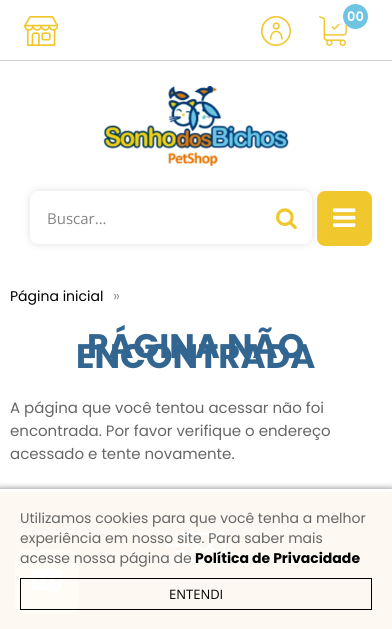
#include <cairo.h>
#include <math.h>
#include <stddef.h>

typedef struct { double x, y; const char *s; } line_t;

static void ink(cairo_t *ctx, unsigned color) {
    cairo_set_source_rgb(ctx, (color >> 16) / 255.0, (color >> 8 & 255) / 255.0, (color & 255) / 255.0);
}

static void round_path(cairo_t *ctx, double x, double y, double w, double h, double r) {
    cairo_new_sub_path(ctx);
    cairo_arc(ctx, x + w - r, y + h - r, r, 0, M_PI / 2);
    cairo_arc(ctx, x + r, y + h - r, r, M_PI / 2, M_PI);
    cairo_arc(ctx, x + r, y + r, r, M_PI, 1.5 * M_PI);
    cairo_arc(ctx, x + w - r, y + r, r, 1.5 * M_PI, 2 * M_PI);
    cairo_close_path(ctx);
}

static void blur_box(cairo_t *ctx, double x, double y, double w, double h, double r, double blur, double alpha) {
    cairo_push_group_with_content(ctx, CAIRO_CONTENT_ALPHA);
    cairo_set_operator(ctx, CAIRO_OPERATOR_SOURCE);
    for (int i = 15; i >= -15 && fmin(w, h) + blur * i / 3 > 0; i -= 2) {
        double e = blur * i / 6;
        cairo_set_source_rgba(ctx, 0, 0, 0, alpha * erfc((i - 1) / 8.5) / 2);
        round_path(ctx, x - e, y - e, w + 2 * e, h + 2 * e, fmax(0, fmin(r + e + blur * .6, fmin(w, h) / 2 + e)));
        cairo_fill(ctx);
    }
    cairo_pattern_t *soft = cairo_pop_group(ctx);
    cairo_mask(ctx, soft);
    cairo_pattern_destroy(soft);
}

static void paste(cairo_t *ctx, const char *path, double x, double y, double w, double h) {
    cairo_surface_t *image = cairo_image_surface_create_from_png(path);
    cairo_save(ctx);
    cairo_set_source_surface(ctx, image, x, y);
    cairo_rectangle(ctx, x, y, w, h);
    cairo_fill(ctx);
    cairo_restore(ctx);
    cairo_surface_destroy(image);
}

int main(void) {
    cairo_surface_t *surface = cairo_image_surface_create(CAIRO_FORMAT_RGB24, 392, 629);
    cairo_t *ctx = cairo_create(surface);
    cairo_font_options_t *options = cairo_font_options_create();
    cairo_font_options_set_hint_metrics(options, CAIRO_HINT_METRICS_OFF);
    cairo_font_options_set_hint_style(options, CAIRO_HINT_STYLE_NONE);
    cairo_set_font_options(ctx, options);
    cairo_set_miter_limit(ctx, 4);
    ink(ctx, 0xFFFFFF);
    cairo_paint(ctx);
    ink(ctx, 0xD0D0D0);
    cairo_rectangle(ctx, 0, 60, 392, 1);
    cairo_fill(ctx);
    paste(ctx, "media/1.png", 24, 16, 34, 30);
    paste(ctx, "media/2.png", 261, 16, 30, 30);
    ink(ctx, 0x6FC4E1);
    cairo_arc(ctx, 355.5, 16.5, 12.5, 0, 2 * M_PI);
    cairo_fill(ctx);
    paste(ctx, "media/3.png", 319, 16, 28, 30);
    cairo_select_font_face(ctx, "Poppins SemiBold", CAIRO_FONT_SLANT_NORMAL, CAIRO_FONT_WEIGHT_NORMAL);
    cairo_set_font_size(ctx, 13);
    ink(ctx, 0xFFFFFF);
    cairo_move_to(ctx, 347, 21);
    cairo_show_text(ctx, "00");
    paste(ctx, "media/4.png", 103, 86, 186, 80);
    ink(ctx, 0xF0C82E);
    round_path(ctx, 317, 191, 55, 55, 8);
    cairo_fill(ctx);
    ink(ctx, 0xCCCCCC);
    blur_box(ctx, 32, 193, 278, 49, 6, 4.5, 1);
    ink(ctx, 0xFFFFFF);
    round_path(ctx, 30, 191, 282, 53, 8);
    cairo_fill(ctx);
    cairo_select_font_face(ctx, "Open Sans", CAIRO_FONT_SLANT_NORMAL, CAIRO_FONT_WEIGHT_NORMAL);
    cairo_set_font_size(ctx, 15);
    ink(ctx, 0x868686);
    cairo_move_to(ctx, 47, 224);
    cairo_show_text(ctx, "Buscar...");
    paste(ctx, "media/5.png", 276, 208, 21, 22);
    paste(ctx, "media/6.png", 333, 208, 23, 19);
    cairo_select_font_face(ctx, "Poppins", CAIRO_FONT_SLANT_NORMAL, CAIRO_FONT_WEIGHT_NORMAL);
    cairo_set_font_size(ctx, 14);
    ink(ctx, 0x000000);
    cairo_move_to(ctx, 10, 301);
    cairo_show_text(ctx, "Página inicial");
    cairo_set_font_size(ctx, 15);
    ink(ctx, 0x999999);
    cairo_move_to(ctx, 113, 301);
    cairo_show_text(ctx, "»");
    cairo_select_font_face(ctx, "Poppins", CAIRO_FONT_SLANT_NORMAL, CAIRO_FONT_WEIGHT_BOLD);
    cairo_set_font_size(ctx, 34);
    ink(ctx, 0x326691);
    cairo_move_to(ctx, 87, 358);
    cairo_show_text(ctx, "PÁGINA NÃO");
    cairo_move_to(ctx, 76, 368);
    cairo_show_text(ctx, "ENCONTRADA");
    cairo_select_font_face(ctx, "Poppins", CAIRO_FONT_SLANT_NORMAL, CAIRO_FONT_WEIGHT_NORMAL);
    cairo_set_font_size(ctx, 15);
    ink(ctx, 0x666666);
    {
        static const line_t items[] = {
            {10, 413, "A página que você tentou acessar não foi"},
            {10, 436, "encontrada. Por favor verifique o endereço"},
            {10, 459, "acessado e tente novamente."},
        };
        for (size_t i = 0; i < sizeof items / sizeof *items; i++) {
            cairo_move_to(ctx, items[i].x, items[i].y);
            cairo_show_text(ctx, items[i].s);
        }
    }
    ink(ctx, 0xFEF8F2);
    cairo_rectangle(ctx, 0, 492, 392, 137);
    cairo_fill(ctx);
    paste(ctx, "media/7.png", 166, 532, 60, 30);
    ink(ctx, 0xFEFCF5);
    round_path(ctx, 15, 550, 64, 64, 10);
    cairo_fill(ctx);
    paste(ctx, "media/8.png", 32, 569, 30, 26);
    cairo_save(ctx);
    cairo_rectangle(ctx, 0, 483, 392, 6);
    cairo_clip(ctx);
    ink(ctx, 0x000000);
    blur_box(ctx, 0, 489, 392, 140, 0, 3.5, 0.5);
    cairo_restore(ctx);
    cairo_set_font_size(ctx, 14);
    ink(ctx, 0x666666);
    {
        static const line_t items[] = {
            {20, 523, "Utilizamos cookies para que você tenha a melhor"},
            {20, 543, "experiência em nosso site. Para saber mais"},
            {20, 563, "acesse nossa página de"},
        };
        for (size_t i = 0; i < sizeof items / sizeof *items; i++) {
            cairo_move_to(ctx, items[i].x, items[i].y);
            cairo_show_text(ctx, items[i].s);
        }
    }
    cairo_select_font_face(ctx, "Poppins", CAIRO_FONT_SLANT_NORMAL, CAIRO_FONT_WEIGHT_BOLD);
    ink(ctx, 0x000000);
    cairo_move_to(ctx, 195, 563);
    cairo_show_text(ctx, "Política de Privacidade");
    cairo_rectangle(ctx, 20.5, 578.5, 351, 31);
    cairo_set_line_width(ctx, 1);
    cairo_stroke(ctx);
    cairo_select_font_face(ctx, "Open Sans", CAIRO_FONT_SLANT_NORMAL, CAIRO_FONT_WEIGHT_NORMAL);
    cairo_set_font_size(ctx, 13);
    cairo_move_to(ctx, 169, 599);
    cairo_show_text(ctx, "ENTENDI");
    cairo_surface_write_to_png(surface, "image.png");
    cairo_font_options_destroy(options);
    cairo_destroy(ctx);
    cairo_surface_destroy(surface);
    return 0;
}
